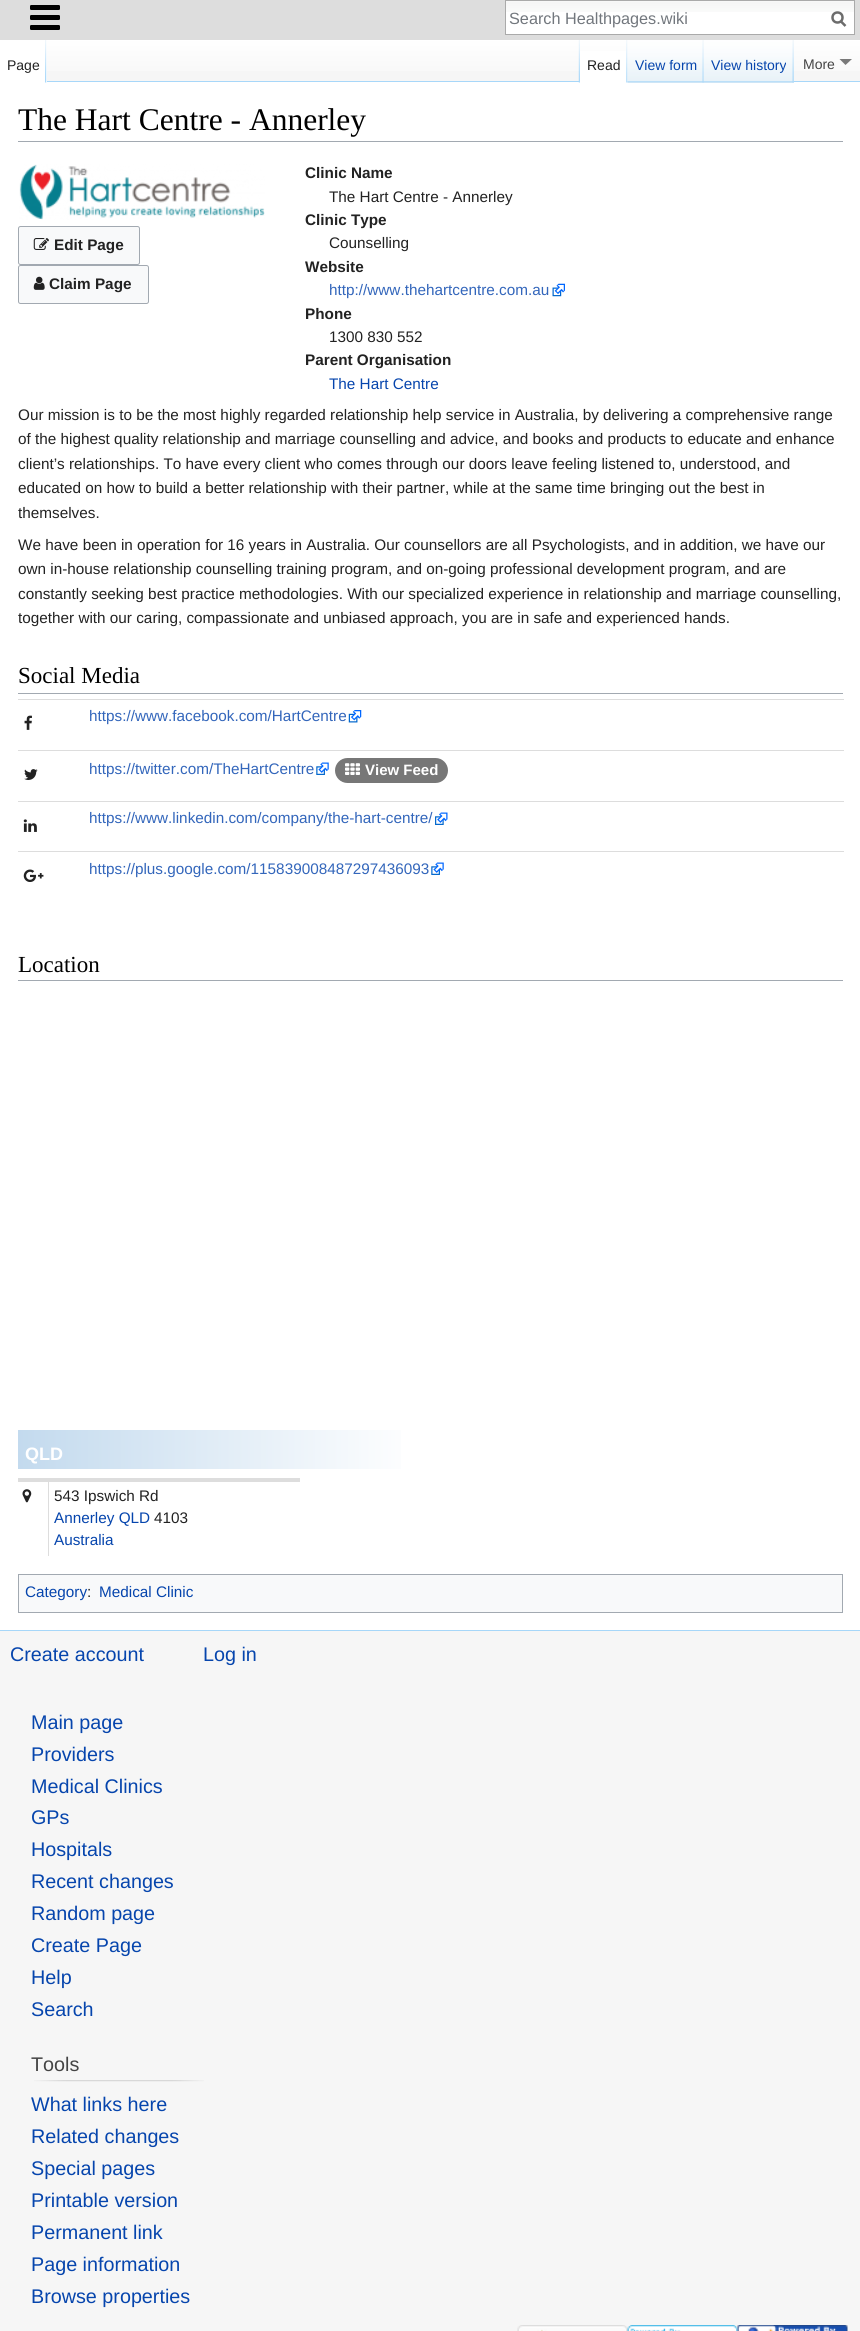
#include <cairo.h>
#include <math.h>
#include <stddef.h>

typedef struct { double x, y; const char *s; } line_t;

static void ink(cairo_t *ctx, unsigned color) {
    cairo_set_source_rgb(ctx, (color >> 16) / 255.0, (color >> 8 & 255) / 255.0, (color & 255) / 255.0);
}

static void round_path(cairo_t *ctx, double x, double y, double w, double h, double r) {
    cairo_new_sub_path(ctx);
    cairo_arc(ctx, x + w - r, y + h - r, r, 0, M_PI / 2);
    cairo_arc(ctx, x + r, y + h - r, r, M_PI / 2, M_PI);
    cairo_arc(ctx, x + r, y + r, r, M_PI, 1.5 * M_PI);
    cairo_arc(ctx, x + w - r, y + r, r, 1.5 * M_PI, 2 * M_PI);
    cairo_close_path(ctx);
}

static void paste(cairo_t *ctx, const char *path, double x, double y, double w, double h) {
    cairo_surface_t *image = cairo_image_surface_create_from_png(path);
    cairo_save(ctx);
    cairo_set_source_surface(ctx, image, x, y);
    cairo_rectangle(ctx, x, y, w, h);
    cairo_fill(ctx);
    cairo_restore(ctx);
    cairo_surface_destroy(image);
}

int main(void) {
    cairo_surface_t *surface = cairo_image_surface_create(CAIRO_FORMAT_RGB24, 860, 2331);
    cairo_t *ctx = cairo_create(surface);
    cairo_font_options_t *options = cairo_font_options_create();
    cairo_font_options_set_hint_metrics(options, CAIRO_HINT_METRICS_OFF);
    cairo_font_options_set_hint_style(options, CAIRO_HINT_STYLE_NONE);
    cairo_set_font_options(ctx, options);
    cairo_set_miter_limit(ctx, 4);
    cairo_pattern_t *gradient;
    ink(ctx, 0xF6F6F6);
    cairo_paint(ctx);
    ink(ctx, 0xFFFFFF);
    cairo_rectangle(ctx, 0, 40, 47, 42);
    cairo_fill(ctx);
    cairo_rectangle(ctx, 0, 82, 860, 1548);
    cairo_fill(ctx);
    paste(ctx, "media/1.png", 45, 40, 2, 43);
    cairo_select_font_face(ctx, "Liberation Sans", CAIRO_FONT_SLANT_NORMAL, CAIRO_FONT_WEIGHT_NORMAL);
    cairo_set_font_size(ctx, 14);
    ink(ctx, 0x222222);
    cairo_move_to(ctx, 7, 70);
    cairo_show_text(ctx, "Page");
    ink(ctx, 0xDDDDDD);
    cairo_rectangle(ctx, 0, 0, 860, 40);
    cairo_fill(ctx);
    paste(ctx, "media/2.png", 30, 5, 30, 25);
    ink(ctx, 0xFFFFFF);
    cairo_rectangle(ctx, 506, 1, 348, 33);
    cairo_fill(ctx);
    paste(ctx, "media/3.png", 506, 1, 348, 11);
    cairo_rectangle(ctx, 505.5, 0.5, 349, 34);
    ink(ctx, 0xAAAAAA);
    cairo_set_line_width(ctx, 1);
    cairo_stroke(ctx);
    cairo_set_font_size(ctx, 16.25);
    ink(ctx, 0x72777D);
    cairo_move_to(ctx, 509, 24);
    cairo_show_text(ctx, "Search Healthpages.wiki");
    cairo_new_path(ctx);
    cairo_move_to(ctx, 845.5, 26);
    cairo_line_to(ctx, 840.5, 21);
    ink(ctx, 0x6C6C6C);
    cairo_set_line_width(ctx, 2.5);
    cairo_stroke(ctx);
    cairo_arc(ctx, 837.5, 17.5, 5, 0, 2 * M_PI);
    cairo_stroke(ctx);
    gradient = cairo_pattern_create_linear(430, -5, 430, 83);
    cairo_pattern_add_color_stop_rgba(gradient, 0.5, 1, 1, 1, 1);
    cairo_pattern_add_color_stop_rgba(gradient, 1, 0.965, 0.965, 0.965, 1);
    cairo_set_source(ctx, gradient);
    cairo_pattern_destroy(gradient);
    cairo_rectangle(ctx, 47, 40, 813, 31);
    cairo_fill(ctx);
    ink(ctx, 0xA7D7F9);
    cairo_rectangle(ctx, 47, 81, 813, 1);
    cairo_fill(ctx);
    paste(ctx, "media/4.png", 578, 40, 2, 43);
    ink(ctx, 0xFFFFFF);
    cairo_rectangle(ctx, 580, 51, 48, 31);
    cairo_fill(ctx);
    paste(ctx, "media/5.png", 626, 40, 2, 43);
    cairo_set_font_size(ctx, 14);
    ink(ctx, 0x222222);
    cairo_move_to(ctx, 587, 70);
    cairo_show_text(ctx, "Read");
    ink(ctx, 0xF3F3F3);
    cairo_rectangle(ctx, 628, 40, 166, 43);
    cairo_fill(ctx);
    paste(ctx, "media/6.png", 627, 40, 77, 43);
    paste(ctx, "media/7.png", 702, 40, 2, 43);
    ink(ctx, 0x0645AD);
    cairo_move_to(ctx, 635, 70);
    cairo_show_text(ctx, "View form");
    paste(ctx, "media/8.png", 703, 40, 91, 43);
    paste(ctx, "media/7.png", 792, 40, 2, 43);
    cairo_move_to(ctx, 711, 70);
    cairo_show_text(ctx, "View history");
    ink(ctx, 0x797979);
    cairo_new_path(ctx);
    cairo_move_to(ctx, 852, 59);
    cairo_line_to(ctx, 845.5, 65);
    cairo_line_to(ctx, 839.5, 59);
    cairo_close_path(ctx);
    cairo_fill(ctx);
    ink(ctx, 0x444444);
    cairo_move_to(ctx, 803, 69);
    cairo_show_text(ctx, "More");
    cairo_set_font_size(ctx, 19.75);
    ink(ctx, 0x0645AD);
    {
        static const line_t items[] = {
            {10, 1661, "Create account"},
            {203, 1661, "Log in"},
            {31, 1729, "Main page"},
            {31, 1761, "Providers"},
            {31, 1793, "Medical Clinics"},
            {31, 1824, "GPs"},
            {31, 1856, "Hospitals"},
            {31, 1888, "Recent changes"},
            {31, 1920, "Random page"},
            {31, 1952, "Create Page"},
            {31, 1984, "Help"},
            {31, 2016, "Search"},
        };
        for (size_t i = 0; i < sizeof items / sizeof *items; i++) {
            cairo_move_to(ctx, items[i].x, items[i].y);
            cairo_show_text(ctx, items[i].s);
        }
    }
    ink(ctx, 0x444444);
    cairo_move_to(ctx, 31, 2071);
    cairo_show_text(ctx, "Tools");
    paste(ctx, "media/9.png", 34, 2080, 170, 2);
    ink(ctx, 0x0645AD);
    {
        static const line_t items[] = {
            {31, 2111, "What links here"},
            {31, 2143, "Related changes"},
            {31, 2175, "Special pages"},
            {31, 2207, "Printable version"},
            {31, 2239, "Permanent link"},
            {31, 2271, "Page information"},
            {31, 2303, "Browse properties"},
        };
        for (size_t i = 0; i < sizeof items / sizeof *items; i++) {
            cairo_move_to(ctx, items[i].x, items[i].y);
            cairo_show_text(ctx, items[i].s);
        }
    }
    ink(ctx, 0xA7D7F9);
    cairo_rectangle(ctx, 0, 1630, 860, 1);
    cairo_fill(ctx);
    ink(ctx, 0xA2A9B1);
    cairo_rectangle(ctx, 18, 141, 825, 1);
    cairo_fill(ctx);
    cairo_select_font_face(ctx, "Liberation Serif", CAIRO_FONT_SLANT_NORMAL, CAIRO_FONT_WEIGHT_NORMAL);
    cairo_set_font_size(ctx, 31.5);
    ink(ctx, 0x000000);
    cairo_move_to(ctx, 18, 130);
    cairo_show_text(ctx, "The Hart Centre - Annerley");
    paste(ctx, "media/10.png", 19, 164, 246, 56);
    ink(ctx, 0xF8F9FA);
    round_path(ctx, 18.5, 226.5, 121, 38, 2);
    cairo_fill_preserve(ctx);
    ink(ctx, 0xA2A9B1);
    cairo_set_line_width(ctx, 1);
    cairo_stroke(ctx);
    paste(ctx, "media/11.png", 33, 238, 16, 12);
    cairo_select_font_face(ctx, "Liberation Sans", CAIRO_FONT_SLANT_NORMAL, CAIRO_FONT_WEIGHT_BOLD);
    cairo_set_font_size(ctx, 15.3);
    ink(ctx, 0x222222);
    cairo_move_to(ctx, 54, 250);
    cairo_show_text(ctx, "Edit Page");
    ink(ctx, 0xF8F9FA);
    round_path(ctx, 18.5, 265.5, 130, 38, 2);
    cairo_fill_preserve(ctx);
    ink(ctx, 0xA2A9B1);
    cairo_stroke(ctx);
    paste(ctx, "media/12.png", 33, 276, 12, 14);
    ink(ctx, 0x222222);
    cairo_move_to(ctx, 49, 289);
    cairo_show_text(ctx, "Claim Page");
    cairo_move_to(ctx, 305, 178);
    cairo_show_text(ctx, "Clinic Name");
    cairo_select_font_face(ctx, "Liberation Sans", CAIRO_FONT_SLANT_NORMAL, CAIRO_FONT_WEIGHT_NORMAL);
    cairo_move_to(ctx, 329, 202);
    cairo_show_text(ctx, "The Hart Centre - Annerley");
    cairo_select_font_face(ctx, "Liberation Sans", CAIRO_FONT_SLANT_NORMAL, CAIRO_FONT_WEIGHT_BOLD);
    cairo_move_to(ctx, 305, 225);
    cairo_show_text(ctx, "Clinic Type");
    cairo_select_font_face(ctx, "Liberation Sans", CAIRO_FONT_SLANT_NORMAL, CAIRO_FONT_WEIGHT_NORMAL);
    cairo_move_to(ctx, 329, 248);
    cairo_show_text(ctx, "Counselling");
    cairo_select_font_face(ctx, "Liberation Sans", CAIRO_FONT_SLANT_NORMAL, CAIRO_FONT_WEIGHT_BOLD);
    cairo_move_to(ctx, 305, 272);
    cairo_show_text(ctx, "Website");
    cairo_select_font_face(ctx, "Liberation Sans", CAIRO_FONT_SLANT_NORMAL, CAIRO_FONT_WEIGHT_NORMAL);
    ink(ctx, 0x3366BB);
    cairo_move_to(ctx, 329, 295);
    cairo_show_text(ctx, "http://www.thehartcentre.com.au");
    paste(ctx, "media/13.png", 552, 283, 13, 14);
    cairo_select_font_face(ctx, "Liberation Sans", CAIRO_FONT_SLANT_NORMAL, CAIRO_FONT_WEIGHT_BOLD);
    ink(ctx, 0x222222);
    cairo_move_to(ctx, 305, 319);
    cairo_show_text(ctx, "Phone");
    cairo_select_font_face(ctx, "Liberation Sans", CAIRO_FONT_SLANT_NORMAL, CAIRO_FONT_WEIGHT_NORMAL);
    cairo_move_to(ctx, 329, 342);
    cairo_show_text(ctx, "1300 830 552");
    cairo_select_font_face(ctx, "Liberation Sans", CAIRO_FONT_SLANT_NORMAL, CAIRO_FONT_WEIGHT_BOLD);
    cairo_move_to(ctx, 305, 365);
    cairo_show_text(ctx, "Parent Organisation");
    cairo_select_font_face(ctx, "Liberation Sans", CAIRO_FONT_SLANT_NORMAL, CAIRO_FONT_WEIGHT_NORMAL);
    ink(ctx, 0x0645AD);
    cairo_move_to(ctx, 329, 389);
    cairo_show_text(ctx, "The Hart Centre");
    ink(ctx, 0x222222);
    {
        static const line_t items[] = {
            {18, 420, "Our mission is to be the most highly regarded relationship help service in Australia, by delivering a comprehensive range"},
            {18, 444, "of the highest quality relationship and marriage counselling and advice, and books and products to educate and enhance"},
            {18, 469, "client’s relationships. To have every client who comes through our doors leave feeling listened to, understood, and"},
            {18, 493, "educated on how to build a better relationship with their partner, while at the same time bringing out the best in"},
            {18, 518, "themselves."},
            {18, 550, "We have been in operation for 16 years in Australia. Our counsellors are all Psychologists, and in addition, we have our"},
            {18, 574, "own in-house relationship counselling training program, and on-going professional development program, and are"},
            {18, 599, "constantly seeking best practice methodologies. With our specialized experience in relationship and marriage counselling,"},
            {18, 623, "together with our caring, compassionate and unbiased approach, you are in safe and experienced hands."},
        };
        for (size_t i = 0; i < sizeof items / sizeof *items; i++) {
            cairo_move_to(ctx, items[i].x, items[i].y);
            cairo_show_text(ctx, items[i].s);
        }
    }
    ink(ctx, 0xA2A9B1);
    cairo_rectangle(ctx, 18, 693, 825, 1);
    cairo_fill(ctx);
    cairo_select_font_face(ctx, "Liberation Serif", CAIRO_FONT_SLANT_NORMAL, CAIRO_FONT_WEIGHT_NORMAL);
    cairo_set_font_size(ctx, 23);
    ink(ctx, 0x000000);
    cairo_move_to(ctx, 18, 683);
    cairo_show_text(ctx, "Social Media");
    paste(ctx, "media/14.png", 24, 715, 8, 15);
    ink(ctx, 0xDDDDDD);
    cairo_rectangle(ctx, 18, 699, 826, 1);
    cairo_fill(ctx);
    cairo_select_font_face(ctx, "Liberation Sans", CAIRO_FONT_SLANT_NORMAL, CAIRO_FONT_WEIGHT_NORMAL);
    cairo_set_font_size(ctx, 15.3);
    ink(ctx, 0x3366BB);
    cairo_move_to(ctx, 89, 721);
    cairo_show_text(ctx, "https://www.facebook.com/HartCentre");
    paste(ctx, "media/15.png", 348, 710, 14, 13);
    paste(ctx, "media/16.png", 24, 769, 14, 11);
    ink(ctx, 0xDDDDDD);
    cairo_rectangle(ctx, 18, 750, 826, 1);
    cairo_fill(ctx);
    ink(ctx, 0x3366BB);
    cairo_move_to(ctx, 89, 774);
    cairo_show_text(ctx, "https://twitter.com/TheHartCentre");
    paste(ctx, "media/17.png", 316, 762, 13, 13);
    ink(ctx, 0x777777);
    round_path(ctx, 335, 758, 113, 25, 12.5);
    cairo_fill(ctx);
    paste(ctx, "media/18.png", 345, 763, 15, 12);
    cairo_select_font_face(ctx, "Liberation Sans", CAIRO_FONT_SLANT_NORMAL, CAIRO_FONT_WEIGHT_BOLD);
    cairo_set_font_size(ctx, 15);
    ink(ctx, 0xFFFFFF);
    cairo_move_to(ctx, 365, 775);
    cairo_show_text(ctx, "View Feed");
    paste(ctx, "media/19.png", 23, 819, 14, 13);
    ink(ctx, 0xDDDDDD);
    cairo_rectangle(ctx, 18, 801, 826, 1);
    cairo_fill(ctx);
    cairo_select_font_face(ctx, "Liberation Sans", CAIRO_FONT_SLANT_NORMAL, CAIRO_FONT_WEIGHT_NORMAL);
    cairo_set_font_size(ctx, 15.3);
    ink(ctx, 0x3366BB);
    cairo_move_to(ctx, 89, 823);
    cairo_show_text(ctx, "https://www.linkedin.com/company/the-hart-centre/");
    paste(ctx, "media/20.png", 435, 812, 13, 13);
    paste(ctx, "media/21.png", 23, 869, 21, 13);
    ink(ctx, 0xDDDDDD);
    cairo_rectangle(ctx, 18, 851, 826, 1);
    cairo_fill(ctx);
    ink(ctx, 0x3366BB);
    cairo_move_to(ctx, 89, 874);
    cairo_show_text(ctx, "https://plus.google.com/115839008487297436093");
    paste(ctx, "media/17.png", 431, 862, 13, 13);
    ink(ctx, 0xA2A9B1);
    cairo_rectangle(ctx, 18, 980, 825, 1);
    cairo_fill(ctx);
    cairo_select_font_face(ctx, "Liberation Serif", CAIRO_FONT_SLANT_NORMAL, CAIRO_FONT_WEIGHT_NORMAL);
    cairo_set_font_size(ctx, 23);
    ink(ctx, 0x000000);
    cairo_move_to(ctx, 18, 972);
    cairo_show_text(ctx, "Location");
    gradient = cairo_pattern_create_linear(18, 1449, 418, 1449);
    cairo_pattern_add_color_stop_rgba(gradient, 0, 0.765, 0.855, 0.933, 1);
    cairo_pattern_add_color_stop_rgba(gradient, 1, 1, 1, 1, 1);
    cairo_set_source(ctx, gradient);
    cairo_pattern_destroy(gradient);
    cairo_rectangle(ctx, 18, 1430, 383, 39);
    cairo_fill(ctx);
    cairo_select_font_face(ctx, "Liberation Sans", CAIRO_FONT_SLANT_NORMAL, CAIRO_FONT_WEIGHT_BOLD);
    cairo_set_font_size(ctx, 18);
    ink(ctx, 0xFFFFFF);
    cairo_move_to(ctx, 25, 1460);
    cairo_show_text(ctx, "QLD");
    ink(ctx, 0xDDDDDD);
    cairo_rectangle(ctx, 18, 1478, 282, 4);
    cairo_fill(ctx);
    paste(ctx, "media/22.png", 22, 1489, 10, 14);
    cairo_rectangle(ctx, 48, 1478, 1, 78);
    cairo_fill(ctx);
    cairo_select_font_face(ctx, "Liberation Sans", CAIRO_FONT_SLANT_NORMAL, CAIRO_FONT_WEIGHT_NORMAL);
    cairo_set_font_size(ctx, 15.3);
    ink(ctx, 0x222222);
    cairo_move_to(ctx, 54, 1501);
    cairo_show_text(ctx, "543 Ipswich Rd");
    ink(ctx, 0x0645AD);
    cairo_move_to(ctx, 54, 1523);
    cairo_show_text(ctx, "Annerley QLD");
    ink(ctx, 0x222222);
    cairo_move_to(ctx, 154, 1523);
    cairo_show_text(ctx, "4103");
    ink(ctx, 0x0645AD);
    cairo_move_to(ctx, 54, 1545);
    cairo_show_text(ctx, "Australia");
    ink(ctx, 0xF8F9FA);
    cairo_rectangle(ctx, 18.5, 1574.5, 824, 38);
    cairo_fill_preserve(ctx);
    ink(ctx, 0xA2A9B1);
    cairo_stroke(ctx);
    ink(ctx, 0x0645AD);
    cairo_move_to(ctx, 25, 1597);
    cairo_show_text(ctx, "Category");
    ink(ctx, 0x222222);
    cairo_move_to(ctx, 87, 1597);
    cairo_show_text(ctx, ":");
    ink(ctx, 0x0645AD);
    cairo_move_to(ctx, 99, 1597);
    cairo_show_text(ctx, "Medical Clinic");
    paste(ctx, "media/23.png", 517, 2325, 111, 6);
    paste(ctx, "media/24.png", 627, 2325, 111, 6);
    paste(ctx, "media/25.png", 737, 2325, 111, 6);
    cairo_surface_write_to_png(surface, "image.png");
    cairo_font_options_destroy(options);
    cairo_destroy(ctx);
    cairo_surface_destroy(surface);
    return 0;
}
